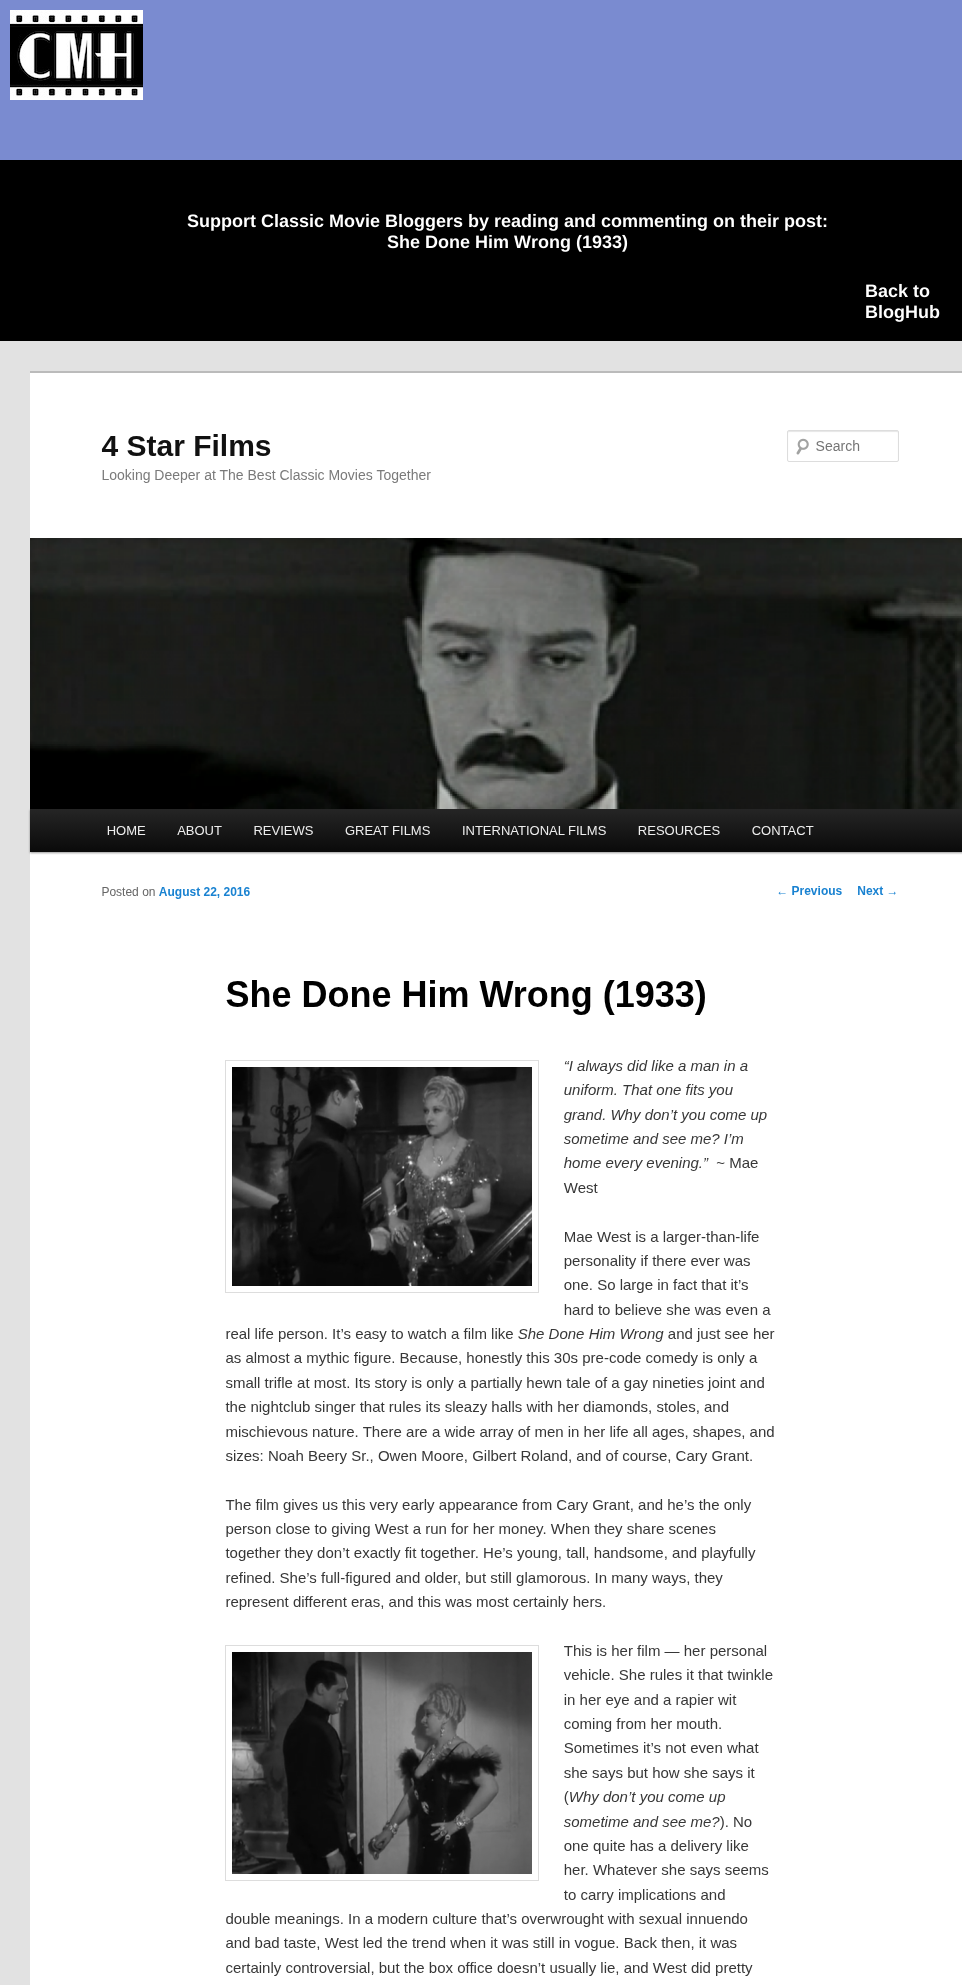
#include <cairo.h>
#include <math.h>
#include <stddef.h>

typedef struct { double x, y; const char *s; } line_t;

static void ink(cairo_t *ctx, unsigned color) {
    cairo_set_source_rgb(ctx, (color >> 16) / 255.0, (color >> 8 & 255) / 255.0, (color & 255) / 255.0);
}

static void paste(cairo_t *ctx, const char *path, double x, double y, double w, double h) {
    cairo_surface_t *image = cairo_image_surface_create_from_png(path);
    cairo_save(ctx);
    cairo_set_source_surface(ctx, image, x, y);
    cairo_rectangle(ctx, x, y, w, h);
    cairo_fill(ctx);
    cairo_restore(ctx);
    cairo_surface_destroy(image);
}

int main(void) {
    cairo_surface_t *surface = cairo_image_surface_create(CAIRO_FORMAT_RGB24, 962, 1985);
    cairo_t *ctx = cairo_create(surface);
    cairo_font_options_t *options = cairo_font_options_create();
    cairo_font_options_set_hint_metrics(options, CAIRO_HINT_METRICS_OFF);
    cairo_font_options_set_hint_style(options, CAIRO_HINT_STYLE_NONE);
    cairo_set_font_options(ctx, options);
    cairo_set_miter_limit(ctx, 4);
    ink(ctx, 0x000000);
    cairo_paint(ctx);
    ink(ctx, 0x7A8BD0);
    cairo_rectangle(ctx, 0, 0, 962, 160);
    cairo_fill(ctx);
    paste(ctx, "media/1.png", 10, 10, 133, 90);
    cairo_select_font_face(ctx, "Liberation Sans", CAIRO_FONT_SLANT_NORMAL, CAIRO_FONT_WEIGHT_BOLD);
    cairo_set_font_size(ctx, 18);
    ink(ctx, 0xFFFFFF);
    {
        static const line_t items[] = {
            {187, 227, "Support Classic Movie Bloggers by reading and commenting on their post:"},
            {387, 248, "She Done Him Wrong (1933)"},
            {865, 297, "Back to"},
            {865, 318, "BlogHub"},
        };
        for (size_t i = 0; i < sizeof items / sizeof *items; i++) {
            cairo_move_to(ctx, items[i].x, items[i].y);
            cairo_show_text(ctx, items[i].s);
        }
    }
    paste(ctx, "media/2.png", 0, 341, 962, 1644);
    cairo_surface_write_to_png(surface, "image.png");
    cairo_font_options_destroy(options);
    cairo_destroy(ctx);
    cairo_surface_destroy(surface);
    return 0;
}
